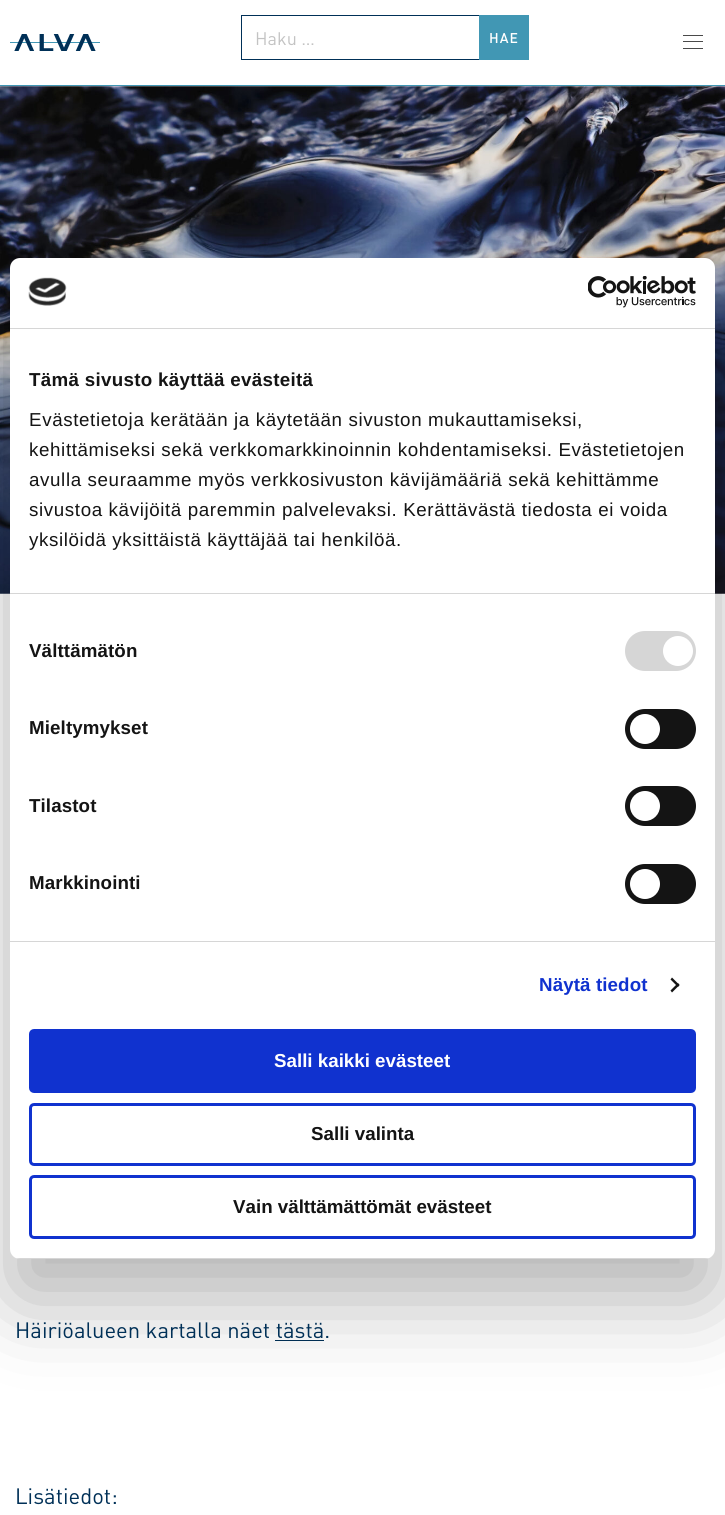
#include <cairo.h>
#include <math.h>
#include <stddef.h>

typedef struct { double x, y; const char *s; } line_t;
typedef struct { double x, y, w, h; unsigned color; } box_t;

static void ink(cairo_t *ctx, unsigned color) {
    cairo_set_source_rgb(ctx, (color >> 16) / 255.0, (color >> 8 & 255) / 255.0, (color & 255) / 255.0);
}

static void write_spaced(cairo_t *ctx, double x, double y, const char *s, double letter, double word) {
    cairo_move_to(ctx, x, y);
    while (*s) {
        char ch[5] = {0};
        int n = 0;
        do ch[n++] = *s++; while ((*s & 0xC0) == 0x80);
        cairo_show_text(ctx, ch);
        cairo_rel_move_to(ctx, letter + word * (*ch == ' '), 0);
    }
}

static void round_path(cairo_t *ctx, double x, double y, double w, double h, double r) {
    cairo_new_sub_path(ctx);
    cairo_arc(ctx, x + w - r, y + h - r, r, 0, M_PI / 2);
    cairo_arc(ctx, x + r, y + h - r, r, M_PI / 2, M_PI);
    cairo_arc(ctx, x + r, y + r, r, M_PI, 1.5 * M_PI);
    cairo_arc(ctx, x + w - r, y + r, r, 1.5 * M_PI, 2 * M_PI);
    cairo_close_path(ctx);
}

static void blur_box(cairo_t *ctx, double x, double y, double w, double h, double r, double blur, double alpha) {
    cairo_push_group_with_content(ctx, CAIRO_CONTENT_ALPHA);
    cairo_set_operator(ctx, CAIRO_OPERATOR_SOURCE);
    for (int i = 15; i >= -15 && fmin(w, h) + blur * i / 3 > 0; i -= 2) {
        double e = blur * i / 6;
        cairo_set_source_rgba(ctx, 0, 0, 0, alpha * erfc((i - 1) / 8.5) / 2);
        round_path(ctx, x - e, y - e, w + 2 * e, h + 2 * e, fmax(0, fmin(r + e + blur * .6, fmin(w, h) / 2 + e)));
        cairo_fill(ctx);
    }
    cairo_pattern_t *soft = cairo_pop_group(ctx);
    cairo_mask(ctx, soft);
    cairo_pattern_destroy(soft);
}

static void paste(cairo_t *ctx, const char *path, double x, double y, double w, double h) {
    cairo_surface_t *image = cairo_image_surface_create_from_png(path);
    cairo_save(ctx);
    cairo_set_source_surface(ctx, image, x, y);
    cairo_rectangle(ctx, x, y, w, h);
    cairo_fill(ctx);
    cairo_restore(ctx);
    cairo_surface_destroy(image);
}

int main(void) {
    cairo_surface_t *surface = cairo_image_surface_create(CAIRO_FORMAT_RGB24, 725, 1515);
    cairo_t *ctx = cairo_create(surface);
    cairo_font_options_t *options = cairo_font_options_create();
    cairo_font_options_set_hint_metrics(options, CAIRO_HINT_METRICS_OFF);
    cairo_font_options_set_hint_style(options, CAIRO_HINT_STYLE_NONE);
    cairo_set_font_options(ctx, options);
    cairo_set_miter_limit(ctx, 4);
    ink(ctx, 0xFFFFFF);
    cairo_paint(ctx);
    ink(ctx, 0x4197B4);
    cairo_rectangle(ctx, 0, 85, 725, 1);
    cairo_fill(ctx);
    paste(ctx, "media/1.png", 10, 34, 90, 17);
    cairo_rectangle(ctx, 241.5, 15.5, 238, 44);
    ink(ctx, 0x003057);
    cairo_set_line_width(ctx, 1);
    cairo_stroke(ctx);
    cairo_select_font_face(ctx, "DIN", CAIRO_FONT_SLANT_NORMAL, CAIRO_FONT_WEIGHT_NORMAL);
    cairo_set_font_size(ctx, 18);
    ink(ctx, 0xC3C3C3);
    cairo_move_to(ctx, 255, 45);
    cairo_show_text(ctx, "Haku …");
    ink(ctx, 0x4197B4);
    cairo_rectangle(ctx, 479, 15, 50, 45);
    cairo_fill(ctx);
    cairo_select_font_face(ctx, "DIN Medium", CAIRO_FONT_SLANT_NORMAL, CAIRO_FONT_WEIGHT_NORMAL);
    cairo_set_font_size(ctx, 14);
    ink(ctx, 0xFFFFFF);
    write_spaced(ctx, 489, 43, "HAE", 1, 0);
    {
        static const box_t items[] = {
            {683, 35, 20, 1, 0x4A4A4A},
            {683, 41, 20, 1, 0x4A4A4A},
            {683, 48, 20, 1, 0x4A4A4A},
        };
        for (size_t i = 0; i < sizeof items / sizeof *items; i++) {
            ink(ctx, items[i].color);
            cairo_rectangle(ctx, items[i].x, items[i].y, items[i].w, items[i].h);
            cairo_fill(ctx);
        }
    }
    paste(ctx, "media/4.png", 0, 86, 725, 508);
    ink(ctx, 0x003057);
    cairo_rectangle(ctx, 275, 1340, 49, 1);
    cairo_fill(ctx);
    ink(ctx, 0x000000);
    blur_box(ctx, 10, 298, 705, 1001, 10, 42.5, 0.3);
    ink(ctx, 0xFFFFFF);
    round_path(ctx, 10, 258, 705, 1001, 10);
    cairo_fill(ctx);
    ink(ctx, 0xD6D6D6);
    cairo_rectangle(ctx, 10, 328, 705, 1);
    cairo_fill(ctx);
    paste(ctx, "media/2.png", 28, 277, 39, 29);
    paste(ctx, "media/3.png", 588, 276, 108, 32);
    cairo_rectangle(ctx, 10, 593, 705, 1);
    cairo_fill(ctx);
    cairo_select_font_face(ctx, "Liberation Sans", CAIRO_FONT_SLANT_NORMAL, CAIRO_FONT_WEIGHT_BOLD);
    cairo_set_font_size(ctx, 18.75);
    ink(ctx, 0x141414);
    write_spaced(ctx, 29, 386, "Tämä sivusto käyttää evästeitä", 0.3, 0);
    cairo_select_font_face(ctx, "Liberation Sans", CAIRO_FONT_SLANT_NORMAL, CAIRO_FONT_WEIGHT_NORMAL);
    {
        static const line_t items[] = {
            {29, 426, "Evästetietoja kerätään ja käytetään sivuston mukauttamiseksi,"},
            {29, 456, "kehittämiseksi sekä verkkomarkkinoinnin kohdentamiseksi. Evästetietojen"},
            {29, 486, "avulla seuraamme myös verkkosivuston kävijämääriä sekä kehittämme"},
            {29, 516, "sivustoa kävijöitä paremmin palvelevaksi. Kerättävästä tiedosta ei voida"},
            {29, 546, "yksilöidä yksittäistä käyttäjää tai henkilöä."},
        };
        for (size_t i = 0; i < sizeof items / sizeof *items; i++) {
            write_spaced(ctx, items[i].x, items[i].y, items[i].s, 0.62, 0);
        }
    }
    ink(ctx, 0xD6D6D6);
    cairo_rectangle(ctx, 10, 941, 705, 1);
    cairo_fill(ctx);
    cairo_select_font_face(ctx, "Liberation Sans", CAIRO_FONT_SLANT_NORMAL, CAIRO_FONT_WEIGHT_BOLD);
    ink(ctx, 0x141414);
    write_spaced(ctx, 29, 657, "Välttämätön", 0.1, 0);
    ink(ctx, 0xD6D6D6);
    round_path(ctx, 625, 631, 71, 40, 20);
    cairo_fill(ctx);
    ink(ctx, 0xFFFFFF);
    cairo_arc(ctx, 678, 651, 15, 0, 2 * M_PI);
    cairo_fill(ctx);
    ink(ctx, 0x141414);
    write_spaced(ctx, 29, 734, "Mieltymykset", 0.1, 0);
    round_path(ctx, 625, 709, 71, 40, 20);
    cairo_fill(ctx);
    ink(ctx, 0xFFFFFF);
    cairo_arc(ctx, 645, 729, 15, 0, 2 * M_PI);
    cairo_fill(ctx);
    ink(ctx, 0x141414);
    write_spaced(ctx, 29, 812, "Tilastot", 0.1, 0);
    round_path(ctx, 625, 786, 71, 40, 20);
    cairo_fill(ctx);
    ink(ctx, 0xFFFFFF);
    cairo_arc(ctx, 645, 806, 15, 0, 2 * M_PI);
    cairo_fill(ctx);
    ink(ctx, 0x141414);
    write_spaced(ctx, 29, 889, "Markkinointi", 0.1, 0);
    round_path(ctx, 625, 864, 71, 40, 20);
    cairo_fill(ctx);
    ink(ctx, 0xFFFFFF);
    cairo_arc(ctx, 645, 884, 15, 0, 2 * M_PI);
    cairo_fill(ctx);
    ink(ctx, 0x1032CF);
    write_spaced(ctx, 539, 991, "Näytä tiedot", 0.1, 0);
    ink(ctx, 0x141414);
    cairo_new_path(ctx);
    cairo_move_to(ctx, 672, 977.5);
    cairo_line_to(ctx, 679.5, 985);
    cairo_line_to(ctx, 678, 987);
    cairo_line_to(ctx, 670.5, 979.5);
    cairo_close_path(ctx);
    cairo_fill(ctx);
    cairo_new_path(ctx);
    cairo_move_to(ctx, 678, 983);
    cairo_line_to(ctx, 679.5, 985);
    cairo_line_to(ctx, 672, 992.5);
    cairo_line_to(ctx, 670.5, 990.5);
    cairo_close_path(ctx);
    cairo_fill(ctx);
    cairo_save(ctx);
    round_path(ctx, 10, 258, 705, 1001, 10);
    cairo_clip(ctx);
    ink(ctx, 0xD6D6D6);
    cairo_rectangle(ctx, 10, 1258, 705, 1);
    cairo_fill(ctx);
    cairo_restore(ctx);
    ink(ctx, 0x1032CF);
    round_path(ctx, 30.5, 1030.5, 664, 61, 3.5);
    cairo_fill_preserve(ctx);
    cairo_set_line_width(ctx, 3);
    cairo_stroke(ctx);
    ink(ctx, 0xFFFFFF);
    cairo_move_to(ctx, 274, 1067);
    cairo_show_text(ctx, "Salli kaikki evästeet");
    round_path(ctx, 30.5, 1104.5, 664, 60, 3.5);
    ink(ctx, 0x1032CF);
    cairo_stroke(ctx);
    ink(ctx, 0x141414);
    cairo_move_to(ctx, 311, 1140);
    cairo_show_text(ctx, "Salli valinta");
    round_path(ctx, 30.5, 1176.5, 664, 61, 3.5);
    ink(ctx, 0x1032CF);
    cairo_stroke(ctx);
    ink(ctx, 0x141414);
    cairo_move_to(ctx, 233, 1213);
    cairo_show_text(ctx, "Vain välttämättömät evästeet");
    cairo_select_font_face(ctx, "DIN", CAIRO_FONT_SLANT_NORMAL, CAIRO_FONT_WEIGHT_NORMAL);
    cairo_set_font_size(ctx, 22);
    ink(ctx, 0x003057);
    cairo_move_to(ctx, 15, 1338);
    cairo_show_text(ctx, "Häiriöalueen kartalla näet tästä.");
    cairo_move_to(ctx, 15, 1504);
    cairo_show_text(ctx, "Lisätiedot:");
    cairo_surface_write_to_png(surface, "image.png");
    cairo_font_options_destroy(options);
    cairo_destroy(ctx);
    cairo_surface_destroy(surface);
    return 0;
}
